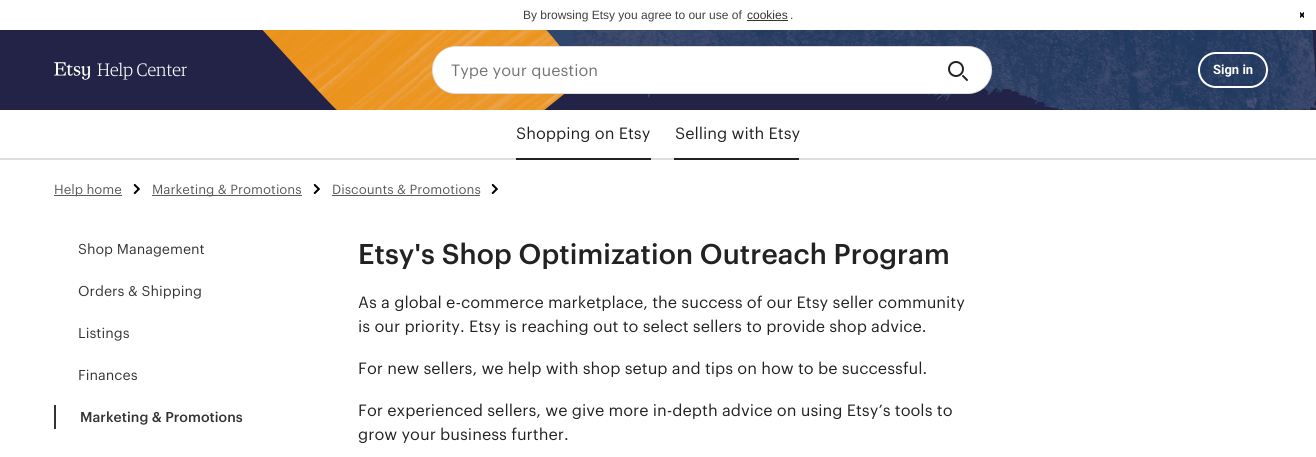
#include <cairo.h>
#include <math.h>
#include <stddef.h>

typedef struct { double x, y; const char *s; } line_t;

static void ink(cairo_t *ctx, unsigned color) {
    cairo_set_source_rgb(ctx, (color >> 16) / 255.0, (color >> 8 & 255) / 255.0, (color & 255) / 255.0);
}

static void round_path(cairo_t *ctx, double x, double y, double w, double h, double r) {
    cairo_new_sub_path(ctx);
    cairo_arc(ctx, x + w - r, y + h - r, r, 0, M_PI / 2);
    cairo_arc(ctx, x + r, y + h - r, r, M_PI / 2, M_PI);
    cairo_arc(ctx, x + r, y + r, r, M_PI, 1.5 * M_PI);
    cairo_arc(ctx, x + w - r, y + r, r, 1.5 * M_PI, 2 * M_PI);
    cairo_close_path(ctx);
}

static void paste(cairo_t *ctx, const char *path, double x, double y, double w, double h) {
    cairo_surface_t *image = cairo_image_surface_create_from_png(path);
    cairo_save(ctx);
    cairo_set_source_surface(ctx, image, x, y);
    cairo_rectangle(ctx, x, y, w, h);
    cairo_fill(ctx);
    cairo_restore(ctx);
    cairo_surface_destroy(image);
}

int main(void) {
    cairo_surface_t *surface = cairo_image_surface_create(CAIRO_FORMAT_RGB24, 1316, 457);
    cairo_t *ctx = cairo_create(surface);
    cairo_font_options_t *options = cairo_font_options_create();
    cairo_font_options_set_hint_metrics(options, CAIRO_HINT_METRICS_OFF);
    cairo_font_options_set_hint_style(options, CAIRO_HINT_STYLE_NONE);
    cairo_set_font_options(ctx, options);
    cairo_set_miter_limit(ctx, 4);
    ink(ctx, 0xFFFFFF);
    cairo_paint(ctx);
    cairo_select_font_face(ctx, "Liberation Sans", CAIRO_FONT_SLANT_NORMAL, CAIRO_FONT_WEIGHT_NORMAL);
    cairo_set_font_size(ctx, 12);
    ink(ctx, 0x404040);
    cairo_move_to(ctx, 523, 19);
    cairo_show_text(ctx, "By browsing Etsy you agree to our use of");
    ink(ctx, 0x333333);
    cairo_move_to(ctx, 747, 19);
    cairo_show_text(ctx, "cookies");
    cairo_rectangle(ctx, 747, 20, 41, 1);
    cairo_fill(ctx);
    ink(ctx, 0x404040);
    cairo_move_to(ctx, 790, 19);
    cairo_show_text(ctx, ".");
    paste(ctx, "media/1.png", 1300, 11, 4, 8);
    ink(ctx, 0x232347);
    cairo_rectangle(ctx, 0, 30, 1316, 80);
    cairo_fill(ctx);
    paste(ctx, "media/2.png", 262, 30, 1054, 80);
    paste(ctx, "media/3.png", 54, 62, 36, 18);
    cairo_select_font_face(ctx, "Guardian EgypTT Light", CAIRO_FONT_SLANT_NORMAL, CAIRO_FONT_WEIGHT_NORMAL);
    cairo_set_font_size(ctx, 18);
    ink(ctx, 0xFFFFFF);
    cairo_move_to(ctx, 97, 76);
    cairo_show_text(ctx, "Help Center");
    round_path(ctx, 432, 46, 560, 48, 24);
    cairo_fill(ctx);
    cairo_set_source_rgba(ctx, 0.133, 0.133, 0.133, 0.15);
    cairo_set_fill_rule(ctx, CAIRO_FILL_RULE_EVEN_ODD);
    cairo_new_path(ctx);
    cairo_move_to(ctx, 456, 46);
    cairo_line_to(ctx, 931, 46);
    cairo_line_to(ctx, 931, 94);
    cairo_line_to(ctx, 456, 94);
    cairo_curve_to(ctx, 443, 94, 432, 83, 432, 70);
    cairo_curve_to(ctx, 432, 57, 443, 46, 456, 46);
    cairo_close_path(ctx);
    cairo_move_to(ctx, 456, 47);
    cairo_line_to(ctx, 931, 47);
    cairo_line_to(ctx, 931, 93);
    cairo_line_to(ctx, 456, 93);
    cairo_curve_to(ctx, 443, 93, 433, 83, 433, 70);
    cairo_curve_to(ctx, 433, 57, 443, 47, 456, 47);
    cairo_close_path(ctx);
    cairo_fill(ctx);
    cairo_select_font_face(ctx, "Graphik", CAIRO_FONT_SLANT_NORMAL, CAIRO_FONT_WEIGHT_NORMAL);
    cairo_set_font_size(ctx, 16);
    ink(ctx, 0x757575);
    cairo_move_to(ctx, 451, 76);
    cairo_show_text(ctx, "Type your question");
    cairo_set_source_rgba(ctx, 0.133, 0.133, 0.133, 0.15);
    cairo_new_path(ctx);
    cairo_move_to(ctx, 931, 46);
    cairo_line_to(ctx, 968, 46);
    cairo_curve_to(ctx, 981, 46, 992, 57, 992, 70);
    cairo_curve_to(ctx, 992, 83, 981, 94, 968, 94);
    cairo_line_to(ctx, 931, 94);
    cairo_close_path(ctx);
    cairo_move_to(ctx, 931, 47);
    cairo_line_to(ctx, 968, 47);
    cairo_curve_to(ctx, 981, 47, 991, 57, 991, 70);
    cairo_curve_to(ctx, 991, 83, 981, 93, 968, 93);
    cairo_line_to(ctx, 931, 93);
    cairo_close_path(ctx);
    cairo_fill(ctx);
    paste(ctx, "media/4.png", 948, 61, 20, 20);
    round_path(ctx, 1199, 53, 68, 34, 17);
    ink(ctx, 0xFFFFFF);
    cairo_stroke(ctx);
    cairo_select_font_face(ctx, "Roboto", CAIRO_FONT_SLANT_NORMAL, CAIRO_FONT_WEIGHT_BOLD);
    cairo_set_font_size(ctx, 13);
    cairo_move_to(ctx, 1213, 74);
    cairo_show_text(ctx, "Sign in");
    ink(ctx, 0xDEDEDE);
    cairo_rectangle(ctx, 0, 158, 1316, 2);
    cairo_fill(ctx);
    cairo_select_font_face(ctx, "Graphik", CAIRO_FONT_SLANT_NORMAL, CAIRO_FONT_WEIGHT_NORMAL);
    cairo_set_font_size(ctx, 16);
    ink(ctx, 0x222222);
    cairo_move_to(ctx, 516, 139);
    cairo_show_text(ctx, "Shopping on Etsy");
    cairo_rectangle(ctx, 516, 158, 135, 2);
    cairo_fill(ctx);
    cairo_move_to(ctx, 675, 139);
    cairo_show_text(ctx, "Selling with Etsy");
    cairo_rectangle(ctx, 674, 158, 125, 2);
    cairo_fill(ctx);
    ink(ctx, 0x595959);
    cairo_rectangle(ctx, 54, 195, 68, 1);
    cairo_fill(ctx);
    cairo_set_font_size(ctx, 13);
    cairo_move_to(ctx, 54, 194);
    cairo_show_text(ctx, "Help home");
    paste(ctx, "media/5.png", 133, 184, 7, 10);
    cairo_rectangle(ctx, 152, 195, 150, 1);
    cairo_fill(ctx);
    cairo_move_to(ctx, 152, 194);
    cairo_show_text(ctx, "Marketing & Promotions");
    paste(ctx, "media/5.png", 313, 184, 7, 10);
    cairo_move_to(ctx, 332, 194);
    cairo_show_text(ctx, "Discounts & Promotions");
    cairo_rectangle(ctx, 332, 195, 148, 1);
    cairo_fill(ctx);
    paste(ctx, "media/5.png", 491, 184, 7, 10);
    cairo_set_font_size(ctx, 14);
    ink(ctx, 0x333333);
    {
        static const line_t items[] = {
            {78, 254, "Shop Management"},
            {78, 296, "Orders & Shipping"},
            {78, 338, "Listings"},
            {78, 380, "Finances"},
        };
        for (size_t i = 0; i < sizeof items / sizeof *items; i++) {
            cairo_move_to(ctx, items[i].x, items[i].y);
            cairo_show_text(ctx, items[i].s);
        }
    }
    cairo_rectangle(ctx, 54, 405, 2, 24);
    cairo_fill(ctx);
    cairo_select_font_face(ctx, "Graphik Medium", CAIRO_FONT_SLANT_NORMAL, CAIRO_FONT_WEIGHT_NORMAL);
    cairo_move_to(ctx, 80, 422);
    cairo_show_text(ctx, "Marketing & Promotions");
    cairo_set_font_size(ctx, 28);
    ink(ctx, 0x222222);
    cairo_move_to(ctx, 358, 264);
    cairo_show_text(ctx, "Etsy's Shop Optimization Outreach Program");
    cairo_select_font_face(ctx, "Graphik", CAIRO_FONT_SLANT_NORMAL, CAIRO_FONT_WEIGHT_NORMAL);
    cairo_set_font_size(ctx, 16);
    {
        static const line_t items[] = {
            {358, 308, "As a global e-commerce marketplace, the success of our Etsy seller community"},
            {358, 332, "is our priority. Etsy is reaching out to select sellers to provide shop advice."},
            {358, 374, "For new sellers, we help with shop setup and tips on how to be successful."},
            {358, 416, "For experienced sellers, we give more in-depth advice on using Etsy’s tools to"},
            {358, 440, "grow your business further."},
        };
        for (size_t i = 0; i < sizeof items / sizeof *items; i++) {
            cairo_move_to(ctx, items[i].x, items[i].y);
            cairo_show_text(ctx, items[i].s);
        }
    }
    cairo_surface_write_to_png(surface, "image.png");
    cairo_font_options_destroy(options);
    cairo_destroy(ctx);
    cairo_surface_destroy(surface);
    return 0;
}
